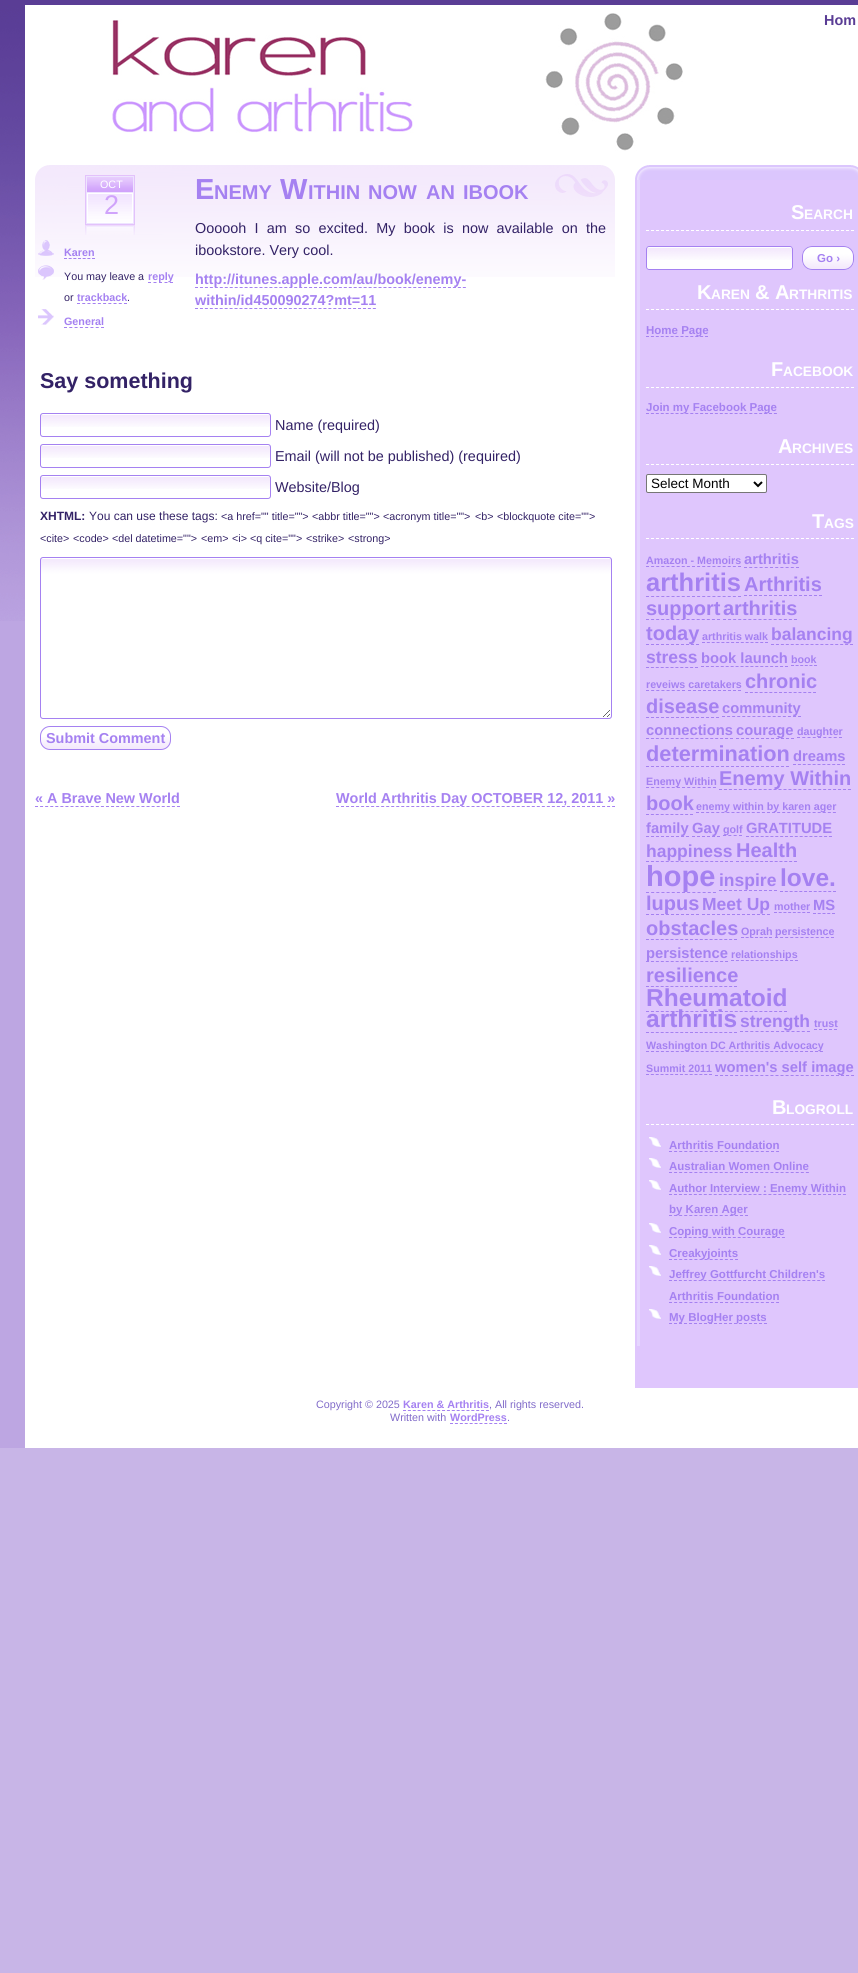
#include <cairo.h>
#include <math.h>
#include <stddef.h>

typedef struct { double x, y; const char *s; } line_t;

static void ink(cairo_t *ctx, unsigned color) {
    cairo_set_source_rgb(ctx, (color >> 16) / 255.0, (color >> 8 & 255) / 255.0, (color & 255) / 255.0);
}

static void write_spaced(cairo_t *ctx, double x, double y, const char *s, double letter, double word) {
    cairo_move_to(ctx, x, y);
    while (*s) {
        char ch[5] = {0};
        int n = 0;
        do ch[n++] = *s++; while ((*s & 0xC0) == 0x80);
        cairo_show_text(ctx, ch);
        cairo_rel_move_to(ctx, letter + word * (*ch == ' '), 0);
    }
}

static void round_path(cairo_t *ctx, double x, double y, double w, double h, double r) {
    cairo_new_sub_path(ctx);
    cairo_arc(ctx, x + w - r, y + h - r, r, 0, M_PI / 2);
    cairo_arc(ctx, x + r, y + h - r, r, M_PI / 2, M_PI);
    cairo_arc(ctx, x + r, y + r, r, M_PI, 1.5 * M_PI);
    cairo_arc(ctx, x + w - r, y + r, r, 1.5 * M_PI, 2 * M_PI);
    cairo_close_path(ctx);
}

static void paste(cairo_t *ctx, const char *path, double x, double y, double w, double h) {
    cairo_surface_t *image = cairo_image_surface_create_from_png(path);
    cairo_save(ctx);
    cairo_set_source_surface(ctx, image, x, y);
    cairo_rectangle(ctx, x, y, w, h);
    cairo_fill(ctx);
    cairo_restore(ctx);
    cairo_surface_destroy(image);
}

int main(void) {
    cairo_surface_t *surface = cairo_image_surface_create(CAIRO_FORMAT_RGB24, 858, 1973);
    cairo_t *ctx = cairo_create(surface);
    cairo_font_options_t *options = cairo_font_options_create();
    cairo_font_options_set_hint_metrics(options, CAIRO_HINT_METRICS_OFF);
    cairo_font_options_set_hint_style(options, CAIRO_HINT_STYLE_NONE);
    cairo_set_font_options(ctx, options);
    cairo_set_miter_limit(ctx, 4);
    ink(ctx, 0xC8B5E7);
    cairo_paint(ctx);
    ink(ctx, 0xBDA6E2);
    cairo_rectangle(ctx, 0, 621, 25, 827);
    cairo_fill(ctx);
    paste(ctx, "media/1.png", 0, 0, 858, 621);
    ink(ctx, 0xFFFFFF);
    cairo_rectangle(ctx, 25, 5, 833, 1393);
    cairo_fill(ctx);
    paste(ctx, "media/2.png", 112, 13, 571, 138);
    cairo_select_font_face(ctx, "Liberation Sans", CAIRO_FONT_SLANT_NORMAL, CAIRO_FONT_WEIGHT_BOLD);
    cairo_set_font_size(ctx, 14.4);
    ink(ctx, 0x5A3D95);
    cairo_move_to(ctx, 824, 25);
    cairo_show_text(ctx, "Hom");
    paste(ctx, "media/3.png", 35, 165, 580, 112);
    paste(ctx, "media/4.png", 85, 175, 50, 60);
    cairo_select_font_face(ctx, "Liberation Sans", CAIRO_FONT_SLANT_NORMAL, CAIRO_FONT_WEIGHT_NORMAL);
    cairo_set_font_size(ctx, 10.75);
    ink(ctx, 0xFFFFFF);
    cairo_move_to(ctx, 100, 188);
    cairo_show_text(ctx, "OCT");
    cairo_set_font_size(ctx, 27);
    ink(ctx, 0xD0A3FB);
    cairo_move_to(ctx, 104, 214);
    cairo_show_text(ctx, "2");
    paste(ctx, "media/5.png", 38, 240, 16, 16);
    cairo_select_font_face(ctx, "Liberation Sans", CAIRO_FONT_SLANT_NORMAL, CAIRO_FONT_WEIGHT_BOLD);
    cairo_set_font_size(ctx, 10.75);
    ink(ctx, 0xA581F1);
    cairo_move_to(ctx, 64, 256);
    cairo_show_text(ctx, "Karen");
    cairo_new_path(ctx);
    cairo_move_to(ctx, 64, 258.5);
    cairo_line_to(ctx, 95, 258.5);
    cairo_set_line_width(ctx, 1);
    cairo_set_dash(ctx, (double[]){3, 1.67}, 2, 0);
    cairo_stroke(ctx);
    paste(ctx, "media/6.png", 38, 265, 16, 15);
    cairo_select_font_face(ctx, "Liberation Sans", CAIRO_FONT_SLANT_NORMAL, CAIRO_FONT_WEIGHT_NORMAL);
    ink(ctx, 0x332266);
    cairo_move_to(ctx, 64, 280);
    cairo_show_text(ctx, "You may leave a");
    cairo_new_path(ctx);
    cairo_move_to(ctx, 148, 282.5);
    cairo_line_to(ctx, 173, 282.5);
    ink(ctx, 0xA581F1);
    cairo_set_dash(ctx, (double[]){3, 2.5}, 2, 0);
    cairo_stroke(ctx);
    cairo_select_font_face(ctx, "Liberation Sans", CAIRO_FONT_SLANT_NORMAL, CAIRO_FONT_WEIGHT_BOLD);
    cairo_move_to(ctx, 148, 280);
    cairo_show_text(ctx, "reply");
    cairo_select_font_face(ctx, "Liberation Sans", CAIRO_FONT_SLANT_NORMAL, CAIRO_FONT_WEIGHT_NORMAL);
    ink(ctx, 0x332266);
    cairo_move_to(ctx, 64, 301);
    cairo_show_text(ctx, "or");
    cairo_select_font_face(ctx, "Liberation Sans", CAIRO_FONT_SLANT_NORMAL, CAIRO_FONT_WEIGHT_BOLD);
    ink(ctx, 0xA581F1);
    cairo_move_to(ctx, 77, 301);
    cairo_show_text(ctx, "trackback");
    cairo_new_path(ctx);
    cairo_move_to(ctx, 77, 303.5);
    cairo_line_to(ctx, 127, 303.5);
    cairo_set_dash(ctx, (double[]){3, 2.22}, 2, 0);
    cairo_stroke(ctx);
    cairo_select_font_face(ctx, "Liberation Sans", CAIRO_FONT_SLANT_NORMAL, CAIRO_FONT_WEIGHT_NORMAL);
    ink(ctx, 0x332266);
    cairo_move_to(ctx, 127, 301);
    cairo_show_text(ctx, ".");
    paste(ctx, "media/7.png", 38, 309, 16, 16);
    cairo_select_font_face(ctx, "Liberation Sans", CAIRO_FONT_SLANT_NORMAL, CAIRO_FONT_WEIGHT_BOLD);
    ink(ctx, 0xA581F1);
    cairo_move_to(ctx, 64, 325);
    cairo_show_text(ctx, "General");
    cairo_new_path(ctx);
    cairo_move_to(ctx, 64, 327.5);
    cairo_line_to(ctx, 104, 327.5);
    cairo_set_dash(ctx, (double[]){3, 2.29}, 2, 0);
    cairo_stroke(ctx);
    cairo_set_font_size(ctx, 29);
    cairo_move_to(ctx, 195, 199);
    cairo_show_text(ctx, "E");
    cairo_set_font_size(ctx, 20);
    cairo_move_to(ctx, 214, 199);
    cairo_show_text(ctx, "NEMY");
    cairo_set_font_size(ctx, 29);
    cairo_move_to(ctx, 280, 199);
    cairo_show_text(ctx, "W");
    cairo_set_font_size(ctx, 20);
    {
        static const line_t items[] = {
            {308, 199, "ITHIN"},
            {368, 199, "NOW"},
            {426, 199, "AN"},
            {463, 199, "IBOOK"},
        };
        for (size_t i = 0; i < sizeof items / sizeof *items; i++) {
            cairo_move_to(ctx, items[i].x, items[i].y);
            cairo_show_text(ctx, items[i].s);
        }
    }
    cairo_select_font_face(ctx, "Liberation Sans", CAIRO_FONT_SLANT_NORMAL, CAIRO_FONT_WEIGHT_NORMAL);
    cairo_set_font_size(ctx, 14.4);
    ink(ctx, 0x332266);
    write_spaced(ctx, 195, 233, "Oooooh I am so excited. My book is now available on the", 0, 4.25);
    cairo_move_to(ctx, 195, 255);
    cairo_show_text(ctx, "ibookstore. Very cool.");
    cairo_select_font_face(ctx, "Liberation Sans", CAIRO_FONT_SLANT_NORMAL, CAIRO_FONT_WEIGHT_BOLD);
    ink(ctx, 0xA581F1);
    cairo_move_to(ctx, 195, 284);
    cairo_show_text(ctx, "http://itunes.apple.com/au/book/enemy-");
    cairo_new_path(ctx);
    cairo_move_to(ctx, 195, 287.5);
    cairo_line_to(ctx, 466, 287.5);
    cairo_set_dash(ctx, (double[]){3, 1.96}, 2, 0);
    cairo_stroke(ctx);
    cairo_move_to(ctx, 195, 305);
    cairo_show_text(ctx, "within/id450090274?mt=11");
    cairo_new_path(ctx);
    cairo_move_to(ctx, 195, 308.5);
    cairo_line_to(ctx, 376, 308.5);
    cairo_set_dash(ctx, (double[]){3, 1.94}, 2, 0);
    cairo_stroke(ctx);
    cairo_set_font_size(ctx, 21.5);
    ink(ctx, 0x332266);
    cairo_move_to(ctx, 40, 388);
    cairo_show_text(ctx, "Say something");
    paste(ctx, "media/8.png", 40, 415, 231, 12);
    round_path(ctx, 40.5, 413.5, 230, 23, 2.5);
    ink(ctx, 0xA581F1);
    cairo_set_dash(ctx, NULL, 0, 0);
    cairo_stroke(ctx);
    cairo_select_font_face(ctx, "Liberation Sans", CAIRO_FONT_SLANT_NORMAL, CAIRO_FONT_WEIGHT_NORMAL);
    cairo_set_font_size(ctx, 14.4);
    ink(ctx, 0x332266);
    cairo_move_to(ctx, 275, 430);
    cairo_show_text(ctx, "Name (required)");
    paste(ctx, "media/8.png", 40, 446, 231, 12);
    round_path(ctx, 40.5, 444.5, 230, 23, 2.5);
    ink(ctx, 0xA581F1);
    cairo_stroke(ctx);
    ink(ctx, 0x332266);
    cairo_move_to(ctx, 275, 461);
    cairo_show_text(ctx, "Email (will not be published) (required)");
    paste(ctx, "media/8.png", 40, 477, 231, 12);
    round_path(ctx, 40.5, 475.5, 230, 23, 2.5);
    ink(ctx, 0xA581F1);
    cairo_stroke(ctx);
    ink(ctx, 0x332266);
    cairo_move_to(ctx, 275, 492);
    cairo_show_text(ctx, "Website/Blog");
    cairo_select_font_face(ctx, "Liberation Sans", CAIRO_FONT_SLANT_NORMAL, CAIRO_FONT_WEIGHT_BOLD);
    cairo_set_font_size(ctx, 12);
    cairo_move_to(ctx, 40, 520);
    cairo_show_text(ctx, "XHTML:");
    cairo_select_font_face(ctx, "Liberation Sans", CAIRO_FONT_SLANT_NORMAL, CAIRO_FONT_WEIGHT_NORMAL);
    cairo_move_to(ctx, 89, 520);
    cairo_show_text(ctx, "You can use these tags:");
    cairo_set_font_size(ctx, 10.75);
    {
        static const line_t items[] = {
            {221, 520, "<a href=\"\" title=\"\">"},
            {312, 520, "<abbr title=\"\">"},
            {383, 520, "<acronym title=\"\">"},
            {475, 520, "<b>"},
            {497, 520, "<blockquote cite=\"\">"},
            {40, 542, "<cite>"},
            {73, 542, "<code>"},
            {112, 542, "<del datetime=\"\">"},
            {201, 542, "<em>"},
            {232, 542, "<i>"},
            {250, 542, "<q cite=\"\">"},
            {306, 542, "<strike>"},
            {348, 542, "<strong>"},
        };
        for (size_t i = 0; i < sizeof items / sizeof *items; i++) {
            cairo_move_to(ctx, items[i].x, items[i].y);
            cairo_show_text(ctx, items[i].s);
        }
    }
    paste(ctx, "media/9.png", 40, 559, 572, 158);
    round_path(ctx, 40.5, 557.5, 571, 161, 2.5);
    ink(ctx, 0xA581F1);
    cairo_stroke(ctx);
    paste(ctx, "media/10.png", 40, 737, 131, 12);
    round_path(ctx, 40.5, 726.5, 130, 23, 9.5);
    cairo_stroke(ctx);
    cairo_select_font_face(ctx, "Liberation Sans", CAIRO_FONT_SLANT_NORMAL, CAIRO_FONT_WEIGHT_BOLD);
    cairo_set_font_size(ctx, 14.4);
    cairo_move_to(ctx, 46, 743);
    cairo_show_text(ctx, "Submit Comment");
    cairo_move_to(ctx, 35, 803);
    cairo_show_text(ctx, "« A Brave New World");
    cairo_new_path(ctx);
    cairo_move_to(ctx, 35, 806.5);
    cairo_line_to(ctx, 180, 806.5);
    cairo_set_dash(ctx, (double[]){3, 2.07}, 2, 0);
    cairo_stroke(ctx);
    cairo_move_to(ctx, 336, 803);
    cairo_show_text(ctx, "World Arthritis Day OCTOBER 12, 2011 »");
    cairo_new_path(ctx);
    cairo_move_to(ctx, 336, 806.5);
    cairo_line_to(ctx, 615, 806.5);
    cairo_set_dash(ctx, (double[]){3, 2.02}, 2, 0);
    cairo_stroke(ctx);
    paste(ctx, "media/11.png", 635, 165, 223, 15);
    ink(ctx, 0xDFC6FD);
    cairo_rectangle(ctx, 635, 180, 223, 1208);
    cairo_fill(ctx);
    ink(ctx, 0xE5D6FE);
    cairo_rectangle(ctx, 637, 180, 3, 1166);
    cairo_fill(ctx);
    cairo_new_path(ctx);
    cairo_move_to(ctx, 646, 230.5);
    cairo_line_to(ctx, 854, 230.5);
    ink(ctx, 0xFFFFFF);
    cairo_set_dash(ctx, (double[]){3, 2}, 2, 0);
    cairo_stroke(ctx);
    cairo_set_font_size(ctx, 20);
    cairo_move_to(ctx, 791, 219);
    cairo_show_text(ctx, "S");
    cairo_set_font_size(ctx, 13.75);
    cairo_move_to(ctx, 804, 219);
    cairo_show_text(ctx, "EARCH");
    round_path(ctx, 646, 246, 147, 24, 3);
    cairo_fill(ctx);
    paste(ctx, "media/12.png", 646, 247, 147, 13);
    round_path(ctx, 646.5, 246.5, 146, 23, 2.5);
    ink(ctx, 0xA581F1);
    cairo_set_dash(ctx, NULL, 0, 0);
    cairo_stroke(ctx);
    ink(ctx, 0xFFFFFF);
    round_path(ctx, 802, 246, 52, 24, 10);
    cairo_fill(ctx);
    paste(ctx, "media/13.png", 802, 253, 52, 16);
    round_path(ctx, 802.5, 246.5, 51, 23, 9.5);
    ink(ctx, 0xA581F1);
    cairo_stroke(ctx);
    cairo_set_font_size(ctx, 11.5);
    cairo_move_to(ctx, 817, 262);
    cairo_show_text(ctx, "Go ›");
    cairo_new_path(ctx);
    cairo_move_to(ctx, 646, 309.5);
    cairo_line_to(ctx, 854, 309.5);
    ink(ctx, 0xFFFFFF);
    cairo_set_dash(ctx, (double[]){3, 2}, 2, 0);
    cairo_stroke(ctx);
    cairo_set_font_size(ctx, 20);
    cairo_move_to(ctx, 697, 299);
    cairo_show_text(ctx, "K");
    cairo_set_font_size(ctx, 13.75);
    cairo_move_to(ctx, 711, 299);
    cairo_show_text(ctx, "AREN");
    cairo_set_font_size(ctx, 20);
    cairo_move_to(ctx, 755, 299);
    cairo_show_text(ctx, "& A");
    cairo_set_font_size(ctx, 13.75);
    cairo_move_to(ctx, 789, 299);
    cairo_show_text(ctx, "RTHRITIS");
    cairo_new_path(ctx);
    cairo_move_to(ctx, 646, 336.5);
    cairo_line_to(ctx, 708, 336.5);
    ink(ctx, 0xA581F1);
    cairo_set_dash(ctx, (double[]){3, 1.92}, 2, 0);
    cairo_stroke(ctx);
    cairo_set_font_size(ctx, 11.5);
    cairo_move_to(ctx, 646, 334);
    cairo_show_text(ctx, "Home Page");
    cairo_new_path(ctx);
    cairo_move_to(ctx, 646, 387.5);
    cairo_line_to(ctx, 854, 387.5);
    ink(ctx, 0xFFFFFF);
    cairo_set_dash(ctx, (double[]){3, 2}, 2, 0);
    cairo_stroke(ctx);
    cairo_set_font_size(ctx, 20);
    cairo_move_to(ctx, 771, 376);
    cairo_show_text(ctx, "F");
    cairo_set_font_size(ctx, 13.75);
    cairo_move_to(ctx, 783, 376);
    cairo_show_text(ctx, "ACEBOOK");
    cairo_new_path(ctx);
    cairo_move_to(ctx, 646, 413.5);
    cairo_line_to(ctx, 777, 413.5);
    ink(ctx, 0xA581F1);
    cairo_set_dash(ctx, (double[]){3, 1.92}, 2, 0);
    cairo_stroke(ctx);
    cairo_set_font_size(ctx, 11.5);
    cairo_move_to(ctx, 646, 411);
    cairo_show_text(ctx, "Join my Facebook Page");
    cairo_new_path(ctx);
    cairo_move_to(ctx, 646, 464.5);
    cairo_line_to(ctx, 854, 464.5);
    ink(ctx, 0xFFFFFF);
    cairo_set_dash(ctx, (double[]){3, 2}, 2, 0);
    cairo_stroke(ctx);
    cairo_set_font_size(ctx, 20);
    cairo_move_to(ctx, 778, 453);
    cairo_show_text(ctx, "A");
    cairo_set_font_size(ctx, 13.75);
    cairo_move_to(ctx, 792, 453);
    cairo_show_text(ctx, "RCHIVES");
    round_path(ctx, 646.5, 474.5, 120, 18, 1.5);
    cairo_fill_preserve(ctx);
    ink(ctx, 0x767676);
    cairo_set_dash(ctx, NULL, 0, 0);
    cairo_stroke(ctx);
    cairo_new_path(ctx);
    cairo_move_to(ctx, 754, 482);
    cairo_line_to(ctx, 758, 486);
    cairo_line_to(ctx, 762, 482);
    ink(ctx, 0x000000);
    cairo_set_line_width(ctx, 2);
    cairo_stroke(ctx);
    cairo_select_font_face(ctx, "Liberation Sans", CAIRO_FONT_SLANT_NORMAL, CAIRO_FONT_WEIGHT_NORMAL);
    cairo_set_font_size(ctx, 13.5);
    cairo_move_to(ctx, 651, 488);
    cairo_show_text(ctx, "Select Month");
    cairo_new_path(ctx);
    cairo_move_to(ctx, 646, 538.5);
    cairo_line_to(ctx, 854, 538.5);
    ink(ctx, 0xFFFFFF);
    cairo_set_line_width(ctx, 1);
    cairo_set_dash(ctx, (double[]){3, 2}, 2, 0);
    cairo_stroke(ctx);
    cairo_select_font_face(ctx, "Liberation Sans", CAIRO_FONT_SLANT_NORMAL, CAIRO_FONT_WEIGHT_BOLD);
    cairo_set_font_size(ctx, 20);
    cairo_move_to(ctx, 812, 528);
    cairo_show_text(ctx, "T");
    cairo_set_font_size(ctx, 13.75);
    cairo_move_to(ctx, 824, 528);
    cairo_show_text(ctx, "AGS");
    cairo_set_font_size(ctx, 10.7);
    ink(ctx, 0xA581F1);
    cairo_move_to(ctx, 646, 564);
    cairo_show_text(ctx, "Amazon - Memoirs");
    cairo_new_path(ctx);
    cairo_move_to(ctx, 646, 566.5);
    cairo_line_to(ctx, 741, 566.5);
    cairo_set_dash(ctx, (double[]){3, 2.11}, 2, 0);
    cairo_stroke(ctx);
    cairo_set_font_size(ctx, 14.75);
    cairo_move_to(ctx, 744, 564);
    cairo_show_text(ctx, "arthritis");
    cairo_new_path(ctx);
    cairo_move_to(ctx, 744, 567.5);
    cairo_line_to(ctx, 799, 567.5);
    cairo_set_dash(ctx, (double[]){3, 2.2}, 2, 0);
    cairo_stroke(ctx);
    cairo_set_font_size(ctx, 25.5);
    cairo_move_to(ctx, 646, 591);
    cairo_show_text(ctx, "arthritis");
    cairo_new_path(ctx);
    cairo_move_to(ctx, 646, 596.5);
    cairo_line_to(ctx, 741, 596.5);
    cairo_set_dash(ctx, (double[]){3, 2.11}, 2, 0);
    cairo_stroke(ctx);
    cairo_set_font_size(ctx, 20);
    cairo_move_to(ctx, 744, 591);
    cairo_show_text(ctx, "Arthritis");
    cairo_new_path(ctx);
    cairo_move_to(ctx, 744, 595.5);
    cairo_line_to(ctx, 822, 595.5);
    cairo_set_dash(ctx, (double[]){3, 2}, 2, 0);
    cairo_stroke(ctx);
    cairo_new_path(ctx);
    cairo_move_to(ctx, 646, 619.5);
    cairo_line_to(ctx, 720, 619.5);
    cairo_set_dash(ctx, (double[]){3, 2.07}, 2, 0);
    cairo_stroke(ctx);
    cairo_move_to(ctx, 646, 615);
    cairo_show_text(ctx, "support");
    cairo_move_to(ctx, 723, 615);
    cairo_show_text(ctx, "arthritis");
    cairo_new_path(ctx);
    cairo_move_to(ctx, 723, 619.5);
    cairo_line_to(ctx, 797, 619.5);
    cairo_stroke(ctx);
    cairo_new_path(ctx);
    cairo_move_to(ctx, 646, 644.5);
    cairo_line_to(ctx, 699, 644.5);
    cairo_set_dash(ctx, (double[]){3, 2}, 2, 0);
    cairo_stroke(ctx);
    cairo_move_to(ctx, 646, 640);
    cairo_show_text(ctx, "today");
    cairo_set_font_size(ctx, 10.7);
    cairo_move_to(ctx, 702, 640);
    cairo_show_text(ctx, "arthritis walk");
    cairo_new_path(ctx);
    cairo_move_to(ctx, 702, 642.5);
    cairo_line_to(ctx, 768, 642.5);
    cairo_set_dash(ctx, (double[]){3, 1.85}, 2, 0);
    cairo_stroke(ctx);
    cairo_set_font_size(ctx, 17.5);
    cairo_move_to(ctx, 771, 640);
    cairo_show_text(ctx, "balancing");
    cairo_new_path(ctx);
    cairo_move_to(ctx, 771, 644.5);
    cairo_line_to(ctx, 853, 644.5);
    cairo_set_dash(ctx, (double[]){3, 1.94}, 2, 0);
    cairo_stroke(ctx);
    cairo_move_to(ctx, 646, 663);
    cairo_show_text(ctx, "stress");
    cairo_new_path(ctx);
    cairo_move_to(ctx, 646, 667.5);
    cairo_line_to(ctx, 698, 667.5);
    cairo_set_dash(ctx, (double[]){3, 1.9}, 2, 0);
    cairo_stroke(ctx);
    cairo_set_font_size(ctx, 14.75);
    cairo_move_to(ctx, 701, 663);
    cairo_show_text(ctx, "book launch");
    cairo_new_path(ctx);
    cairo_move_to(ctx, 701, 666.5);
    cairo_line_to(ctx, 788, 666.5);
    cairo_set_dash(ctx, (double[]){3, 1.94}, 2, 0);
    cairo_stroke(ctx);
    cairo_set_font_size(ctx, 10.7);
    cairo_move_to(ctx, 791, 663);
    cairo_show_text(ctx, "book");
    cairo_new_path(ctx);
    cairo_move_to(ctx, 791, 665.5);
    cairo_line_to(ctx, 817, 665.5);
    cairo_set_dash(ctx, (double[]){3, 1.6}, 2, 0);
    cairo_stroke(ctx);
    cairo_move_to(ctx, 646, 688);
    cairo_show_text(ctx, "reveiws caretakers");
    cairo_new_path(ctx);
    cairo_move_to(ctx, 646, 690.5);
    cairo_line_to(ctx, 685, 690.5);
    cairo_set_dash(ctx, (double[]){3, 2.14}, 2, 0);
    cairo_stroke(ctx);
    cairo_set_font_size(ctx, 20);
    cairo_move_to(ctx, 745, 688);
    cairo_show_text(ctx, "chronic");
    cairo_new_path(ctx);
    cairo_move_to(ctx, 745, 692.5);
    cairo_line_to(ctx, 816, 692.5);
    cairo_set_dash(ctx, (double[]){3, 1.86}, 2, 0);
    cairo_stroke(ctx);
    cairo_new_path(ctx);
    cairo_move_to(ctx, 688, 690.5);
    cairo_line_to(ctx, 741, 690.5);
    cairo_set_dash(ctx, (double[]){3, 2}, 2, 0);
    cairo_stroke(ctx);
    cairo_move_to(ctx, 646, 713);
    cairo_show_text(ctx, "disease");
    cairo_new_path(ctx);
    cairo_move_to(ctx, 646, 717.5);
    cairo_line_to(ctx, 719, 717.5);
    cairo_stroke(ctx);
    cairo_new_path(ctx);
    cairo_move_to(ctx, 722, 716.5);
    cairo_line_to(ctx, 801, 716.5);
    cairo_set_dash(ctx, (double[]){3, 2.07}, 2, 0);
    cairo_stroke(ctx);
    cairo_set_font_size(ctx, 14.75);
    cairo_move_to(ctx, 722, 713);
    cairo_show_text(ctx, "community");
    cairo_move_to(ctx, 646, 735);
    cairo_show_text(ctx, "connections");
    cairo_new_path(ctx);
    cairo_move_to(ctx, 646, 738.5);
    cairo_line_to(ctx, 733, 738.5);
    cairo_set_dash(ctx, (double[]){3, 1.94}, 2, 0);
    cairo_stroke(ctx);
    cairo_new_path(ctx);
    cairo_move_to(ctx, 736, 738.5);
    cairo_line_to(ctx, 794, 738.5);
    cairo_set_dash(ctx, (double[]){3, 2}, 2, 0);
    cairo_stroke(ctx);
    cairo_move_to(ctx, 736, 735);
    cairo_show_text(ctx, "courage");
    cairo_new_path(ctx);
    cairo_move_to(ctx, 797, 737.5);
    cairo_line_to(ctx, 842, 737.5);
    cairo_set_dash(ctx, (double[]){3, 2.25}, 2, 0);
    cairo_stroke(ctx);
    cairo_set_font_size(ctx, 10.7);
    cairo_move_to(ctx, 797, 735);
    cairo_show_text(ctx, "daughter");
    cairo_set_font_size(ctx, 21.75);
    cairo_move_to(ctx, 646, 761);
    cairo_show_text(ctx, "determination");
    cairo_new_path(ctx);
    cairo_move_to(ctx, 646, 766.5);
    cairo_line_to(ctx, 789, 766.5);
    cairo_set_dash(ctx, (double[]){3, 2}, 2, 0);
    cairo_stroke(ctx);
    cairo_set_font_size(ctx, 14.75);
    cairo_move_to(ctx, 793, 761);
    cairo_show_text(ctx, "dreams");
    cairo_new_path(ctx);
    cairo_move_to(ctx, 793, 764.5);
    cairo_line_to(ctx, 845, 764.5);
    cairo_set_dash(ctx, (double[]){3, 1.9}, 2, 0);
    cairo_stroke(ctx);
    cairo_new_path(ctx);
    cairo_move_to(ctx, 646, 787.5);
    cairo_line_to(ctx, 716, 787.5);
    cairo_set_dash(ctx, (double[]){3, 2.15}, 2, 0);
    cairo_stroke(ctx);
    cairo_set_font_size(ctx, 10.7);
    cairo_move_to(ctx, 646, 785);
    cairo_show_text(ctx, "Enemy Within");
    cairo_new_path(ctx);
    cairo_move_to(ctx, 719, 789.5);
    cairo_line_to(ctx, 851, 789.5);
    cairo_set_dash(ctx, (double[]){3, 1.96}, 2, 0);
    cairo_stroke(ctx);
    cairo_set_font_size(ctx, 20);
    cairo_move_to(ctx, 719, 785);
    cairo_show_text(ctx, "Enemy Within");
    cairo_move_to(ctx, 646, 810);
    cairo_show_text(ctx, "book");
    cairo_new_path(ctx);
    cairo_move_to(ctx, 646, 814.5);
    cairo_line_to(ctx, 693, 814.5);
    cairo_set_dash(ctx, (double[]){3, 1.89}, 2, 0);
    cairo_stroke(ctx);
    cairo_new_path(ctx);
    cairo_move_to(ctx, 696, 812.5);
    cairo_line_to(ctx, 836, 812.5);
    cairo_set_dash(ctx, (double[]){3, 2.07}, 2, 0);
    cairo_stroke(ctx);
    cairo_set_font_size(ctx, 10.7);
    cairo_move_to(ctx, 696, 810);
    cairo_show_text(ctx, "enemy within by karen ager");
    cairo_new_path(ctx);
    cairo_move_to(ctx, 646, 836.5);
    cairo_line_to(ctx, 689, 836.5);
    cairo_set_dash(ctx, (double[]){3, 2}, 2, 0);
    cairo_stroke(ctx);
    cairo_set_font_size(ctx, 14.75);
    cairo_move_to(ctx, 646, 833);
    cairo_show_text(ctx, "family");
    cairo_new_path(ctx);
    cairo_move_to(ctx, 692, 836.5);
    cairo_line_to(ctx, 720, 836.5);
    cairo_stroke(ctx);
    cairo_move_to(ctx, 692, 833);
    cairo_show_text(ctx, "Gay");
    cairo_new_path(ctx);
    cairo_move_to(ctx, 723, 835.5);
    cairo_line_to(ctx, 742, 835.5);
    cairo_set_dash(ctx, (double[]){3, 2.33}, 2, 0);
    cairo_stroke(ctx);
    cairo_set_font_size(ctx, 10.7);
    cairo_move_to(ctx, 723, 833);
    cairo_show_text(ctx, "golf");
    cairo_set_font_size(ctx, 14.75);
    cairo_move_to(ctx, 746, 833);
    cairo_show_text(ctx, "GRATITUDE");
    cairo_new_path(ctx);
    cairo_move_to(ctx, 746, 836.5);
    cairo_line_to(ctx, 832, 836.5);
    cairo_set_dash(ctx, (double[]){3, 1.88}, 2, 0);
    cairo_stroke(ctx);
    cairo_set_font_size(ctx, 17.5);
    cairo_move_to(ctx, 646, 857);
    cairo_show_text(ctx, "happiness");
    cairo_new_path(ctx);
    cairo_move_to(ctx, 646, 861.5);
    cairo_line_to(ctx, 733, 861.5);
    cairo_set_dash(ctx, (double[]){3, 1.94}, 2, 0);
    cairo_stroke(ctx);
    cairo_set_font_size(ctx, 20);
    cairo_move_to(ctx, 736, 857);
    cairo_show_text(ctx, "Health");
    cairo_new_path(ctx);
    cairo_move_to(ctx, 736, 861.5);
    cairo_line_to(ctx, 797, 861.5);
    cairo_set_dash(ctx, (double[]){3, 1.83}, 2, 0);
    cairo_stroke(ctx);
    cairo_new_path(ctx);
    cairo_move_to(ctx, 646, 892.5);
    cairo_line_to(ctx, 716, 892.5);
    cairo_set_dash(ctx, (double[]){3, 2.15}, 2, 0);
    cairo_stroke(ctx);
    cairo_set_font_size(ctx, 29);
    cairo_move_to(ctx, 646, 886);
    cairo_show_text(ctx, "hope");
    cairo_set_font_size(ctx, 17.5);
    cairo_move_to(ctx, 719, 886);
    cairo_show_text(ctx, "inspire");
    cairo_new_path(ctx);
    cairo_move_to(ctx, 719, 890.5);
    cairo_line_to(ctx, 777, 890.5);
    cairo_set_dash(ctx, (double[]){3, 2}, 2, 0);
    cairo_stroke(ctx);
    cairo_set_font_size(ctx, 24.5);
    cairo_move_to(ctx, 780, 886);
    cairo_show_text(ctx, "love.");
    cairo_new_path(ctx);
    cairo_move_to(ctx, 780, 891.5);
    cairo_line_to(ctx, 836, 891.5);
    cairo_set_dash(ctx, (double[]){3, 1.82}, 2, 0);
    cairo_stroke(ctx);
    cairo_new_path(ctx);
    cairo_move_to(ctx, 646, 914.5);
    cairo_line_to(ctx, 699, 914.5);
    cairo_set_dash(ctx, (double[]){3, 2}, 2, 0);
    cairo_stroke(ctx);
    cairo_set_font_size(ctx, 20);
    cairo_move_to(ctx, 646, 910);
    cairo_show_text(ctx, "lupus");
    cairo_set_font_size(ctx, 17.5);
    cairo_move_to(ctx, 702, 910);
    cairo_show_text(ctx, "Meet Up");
    cairo_new_path(ctx);
    cairo_move_to(ctx, 702, 914.5);
    cairo_line_to(ctx, 770, 914.5);
    cairo_stroke(ctx);
    cairo_set_font_size(ctx, 10.7);
    cairo_move_to(ctx, 774, 910);
    cairo_show_text(ctx, "mother");
    cairo_new_path(ctx);
    cairo_move_to(ctx, 774, 912.5);
    cairo_line_to(ctx, 810, 912.5);
    cairo_set_dash(ctx, (double[]){3, 1.71}, 2, 0);
    cairo_stroke(ctx);
    cairo_set_font_size(ctx, 14.75);
    cairo_move_to(ctx, 813, 910);
    cairo_show_text(ctx, "MS");
    cairo_new_path(ctx);
    cairo_move_to(ctx, 813, 913.5);
    cairo_line_to(ctx, 835, 913.5);
    cairo_set_dash(ctx, (double[]){3, 1.75}, 2, 0);
    cairo_stroke(ctx);
    cairo_set_font_size(ctx, 20);
    cairo_move_to(ctx, 646, 935);
    cairo_show_text(ctx, "obstacles");
    cairo_new_path(ctx);
    cairo_move_to(ctx, 646, 939.5);
    cairo_line_to(ctx, 737, 939.5);
    cairo_set_dash(ctx, (double[]){3, 1.89}, 2, 0);
    cairo_stroke(ctx);
    cairo_new_path(ctx);
    cairo_move_to(ctx, 741, 937.5);
    cairo_line_to(ctx, 772, 937.5);
    cairo_set_dash(ctx, (double[]){3, 1.67}, 2, 0);
    cairo_stroke(ctx);
    cairo_set_font_size(ctx, 10.7);
    cairo_move_to(ctx, 741, 935);
    cairo_show_text(ctx, "Oprah");
    cairo_new_path(ctx);
    cairo_move_to(ctx, 775, 937.5);
    cairo_line_to(ctx, 834, 937.5);
    cairo_set_dash(ctx, (double[]){3, 2.09}, 2, 0);
    cairo_stroke(ctx);
    cairo_move_to(ctx, 775, 935);
    cairo_show_text(ctx, "persistence");
    cairo_new_path(ctx);
    cairo_move_to(ctx, 646, 961.5);
    cairo_line_to(ctx, 728, 961.5);
    cairo_set_dash(ctx, (double[]){3, 1.94}, 2, 0);
    cairo_stroke(ctx);
    cairo_set_font_size(ctx, 14.75);
    cairo_move_to(ctx, 646, 958);
    cairo_show_text(ctx, "persistence");
    cairo_new_path(ctx);
    cairo_move_to(ctx, 731, 960.5);
    cairo_line_to(ctx, 798, 960.5);
    cairo_set_dash(ctx, (double[]){3, 1.92}, 2, 0);
    cairo_stroke(ctx);
    cairo_set_font_size(ctx, 10.7);
    cairo_move_to(ctx, 731, 958);
    cairo_show_text(ctx, "relationships");
    cairo_set_font_size(ctx, 20);
    cairo_move_to(ctx, 646, 982);
    cairo_show_text(ctx, "resilience");
    cairo_new_path(ctx);
    cairo_move_to(ctx, 646, 986.5);
    cairo_line_to(ctx, 737, 986.5);
    cairo_set_dash(ctx, (double[]){3, 1.89}, 2, 0);
    cairo_stroke(ctx);
    cairo_set_font_size(ctx, 24.5);
    cairo_move_to(ctx, 646, 1006);
    cairo_show_text(ctx, "Rheumatoid");
    cairo_new_path(ctx);
    cairo_move_to(ctx, 646, 1011.5);
    cairo_line_to(ctx, 787, 1011.5);
    cairo_set_dash(ctx, (double[]){3, 1.93}, 2, 0);
    cairo_stroke(ctx);
    cairo_move_to(ctx, 646, 1027);
    cairo_show_text(ctx, "arthritis");
    cairo_new_path(ctx);
    cairo_move_to(ctx, 646, 1032.5);
    cairo_line_to(ctx, 737, 1032.5);
    cairo_set_dash(ctx, (double[]){3, 1.89}, 2, 0);
    cairo_stroke(ctx);
    cairo_set_font_size(ctx, 17.5);
    cairo_move_to(ctx, 740, 1027);
    cairo_show_text(ctx, "strength");
    cairo_new_path(ctx);
    cairo_move_to(ctx, 740, 1031.5);
    cairo_line_to(ctx, 810, 1031.5);
    cairo_set_dash(ctx, (double[]){3, 2.15}, 2, 0);
    cairo_stroke(ctx);
    cairo_set_font_size(ctx, 10.7);
    cairo_move_to(ctx, 814, 1027);
    cairo_show_text(ctx, "trust");
    cairo_new_path(ctx);
    cairo_move_to(ctx, 814, 1029.5);
    cairo_line_to(ctx, 837, 1029.5);
    cairo_set_dash(ctx, (double[]){3, 2}, 2, 0);
    cairo_stroke(ctx);
    cairo_new_path(ctx);
    cairo_move_to(ctx, 646, 1051.5);
    cairo_line_to(ctx, 823, 1051.5);
    cairo_set_dash(ctx, (double[]){3, 1.97}, 2, 0);
    cairo_stroke(ctx);
    cairo_move_to(ctx, 646, 1049);
    cairo_show_text(ctx, "Washington DC Arthritis Advocacy");
    cairo_move_to(ctx, 646, 1072);
    cairo_show_text(ctx, "Summit 2011");
    cairo_new_path(ctx);
    cairo_move_to(ctx, 646, 1074.5);
    cairo_line_to(ctx, 712, 1074.5);
    cairo_set_dash(ctx, (double[]){3, 1.85}, 2, 0);
    cairo_stroke(ctx);
    cairo_new_path(ctx);
    cairo_move_to(ctx, 715, 1075.5);
    cairo_line_to(ctx, 854, 1075.5);
    cairo_set_dash(ctx, (double[]){3, 2.04}, 2, 0);
    cairo_stroke(ctx);
    cairo_set_font_size(ctx, 14.75);
    cairo_move_to(ctx, 715, 1072);
    cairo_show_text(ctx, "women's self image");
    cairo_new_path(ctx);
    cairo_move_to(ctx, 646, 1124.5);
    cairo_line_to(ctx, 854, 1124.5);
    ink(ctx, 0xFFFFFF);
    cairo_set_dash(ctx, (double[]){3, 2}, 2, 0);
    cairo_stroke(ctx);
    cairo_set_font_size(ctx, 20);
    cairo_move_to(ctx, 772, 1114);
    cairo_show_text(ctx, "B");
    cairo_set_font_size(ctx, 13.75);
    cairo_move_to(ctx, 786, 1114);
    cairo_show_text(ctx, "LOGROLL");
    paste(ctx, "media/14.png", 649, 1137, 12, 10);
    cairo_set_font_size(ctx, 11.5);
    ink(ctx, 0xA581F1);
    cairo_move_to(ctx, 669, 1149);
    cairo_show_text(ctx, "Arthritis Foundation");
    cairo_new_path(ctx);
    cairo_move_to(ctx, 669, 1151.5);
    cairo_line_to(ctx, 779, 1151.5);
    cairo_set_dash(ctx, (double[]){3, 2.1}, 2, 0);
    cairo_stroke(ctx);
    paste(ctx, "media/14.png", 649, 1158, 12, 10);
    cairo_move_to(ctx, 669, 1170);
    cairo_show_text(ctx, "Australian Women Online");
    cairo_new_path(ctx);
    cairo_move_to(ctx, 669, 1172.5);
    cairo_line_to(ctx, 809, 1172.5);
    cairo_set_dash(ctx, (double[]){3, 2.07}, 2, 0);
    cairo_stroke(ctx);
    paste(ctx, "media/14.png", 649, 1180, 12, 10);
    cairo_new_path(ctx);
    cairo_move_to(ctx, 669, 1194.5);
    cairo_line_to(ctx, 846, 1194.5);
    cairo_set_dash(ctx, (double[]){3, 1.97}, 2, 0);
    cairo_stroke(ctx);
    cairo_move_to(ctx, 669, 1192);
    cairo_show_text(ctx, "Author Interview : Enemy Within");
    cairo_new_path(ctx);
    cairo_move_to(ctx, 669, 1215.5);
    cairo_line_to(ctx, 748, 1215.5);
    cairo_set_dash(ctx, (double[]){3, 2.07}, 2, 0);
    cairo_stroke(ctx);
    cairo_move_to(ctx, 669, 1213);
    cairo_show_text(ctx, "by Karen Ager");
    paste(ctx, "media/14.png", 649, 1223, 12, 10);
    cairo_new_path(ctx);
    cairo_move_to(ctx, 669, 1237.5);
    cairo_line_to(ctx, 785, 1237.5);
    cairo_set_dash(ctx, (double[]){3, 1.91}, 2, 0);
    cairo_stroke(ctx);
    cairo_move_to(ctx, 669, 1235);
    cairo_show_text(ctx, "Coping with Courage");
    paste(ctx, "media/14.png", 649, 1245, 12, 10);
    cairo_new_path(ctx);
    cairo_move_to(ctx, 669, 1259.5);
    cairo_line_to(ctx, 738, 1259.5);
    cairo_set_dash(ctx, (double[]){3, 2.08}, 2, 0);
    cairo_stroke(ctx);
    cairo_move_to(ctx, 669, 1257);
    cairo_show_text(ctx, "Creakyjoints");
    paste(ctx, "media/14.png", 649, 1266, 12, 10);
    cairo_new_path(ctx);
    cairo_move_to(ctx, 669, 1280.5);
    cairo_line_to(ctx, 825, 1280.5);
    cairo_set_dash(ctx, (double[]){3, 1.94}, 2, 0);
    cairo_stroke(ctx);
    cairo_move_to(ctx, 669, 1278);
    cairo_show_text(ctx, "Jeffrey Gottfurcht Children's");
    cairo_move_to(ctx, 669, 1300);
    cairo_show_text(ctx, "Arthritis Foundation");
    cairo_new_path(ctx);
    cairo_move_to(ctx, 669, 1302.5);
    cairo_line_to(ctx, 779, 1302.5);
    cairo_set_dash(ctx, (double[]){3, 2.1}, 2, 0);
    cairo_stroke(ctx);
    paste(ctx, "media/14.png", 649, 1309, 12, 10);
    cairo_new_path(ctx);
    cairo_move_to(ctx, 669, 1323.5);
    cairo_line_to(ctx, 767, 1323.5);
    cairo_set_dash(ctx, (double[]){3, 2}, 2, 0);
    cairo_stroke(ctx);
    cairo_move_to(ctx, 669, 1321);
    cairo_show_text(ctx, "My BlogHer posts");
    ink(ctx, 0xFFFFFF);
    cairo_rectangle(ctx, 25, 1398, 833, 50);
    cairo_fill(ctx);
    cairo_select_font_face(ctx, "Liberation Sans", CAIRO_FONT_SLANT_NORMAL, CAIRO_FONT_WEIGHT_NORMAL);
    cairo_set_font_size(ctx, 10.75);
    ink(ctx, 0x816BC9);
    cairo_move_to(ctx, 316, 1408);
    cairo_show_text(ctx, "Copyright © 2025");
    cairo_select_font_face(ctx, "Liberation Sans", CAIRO_FONT_SLANT_NORMAL, CAIRO_FONT_WEIGHT_BOLD);
    ink(ctx, 0xA581F1);
    cairo_move_to(ctx, 403, 1408);
    cairo_show_text(ctx, "Karen & Arthritis");
    cairo_new_path(ctx);
    cairo_move_to(ctx, 403, 1410.5);
    cairo_line_to(ctx, 489, 1410.5);
    cairo_set_dash(ctx, (double[]){3, 1.88}, 2, 0);
    cairo_stroke(ctx);
    cairo_select_font_face(ctx, "Liberation Sans", CAIRO_FONT_SLANT_NORMAL, CAIRO_FONT_WEIGHT_NORMAL);
    ink(ctx, 0x816BC9);
    cairo_move_to(ctx, 489, 1408);
    cairo_show_text(ctx, ", All rights reserved.");
    cairo_move_to(ctx, 390, 1421);
    cairo_show_text(ctx, "Written with");
    cairo_select_font_face(ctx, "Liberation Sans", CAIRO_FONT_SLANT_NORMAL, CAIRO_FONT_WEIGHT_BOLD);
    ink(ctx, 0xA581F1);
    cairo_move_to(ctx, 450, 1421);
    cairo_show_text(ctx, "WordPress");
    cairo_new_path(ctx);
    cairo_move_to(ctx, 450, 1423.5);
    cairo_line_to(ctx, 507, 1423.5);
    cairo_set_dash(ctx, (double[]){3, 1.91}, 2, 0);
    cairo_stroke(ctx);
    cairo_select_font_face(ctx, "Liberation Sans", CAIRO_FONT_SLANT_NORMAL, CAIRO_FONT_WEIGHT_NORMAL);
    ink(ctx, 0x816BC9);
    cairo_move_to(ctx, 507, 1421);
    cairo_show_text(ctx, ".");
    cairo_surface_write_to_png(surface, "image.png");
    cairo_font_options_destroy(options);
    cairo_destroy(ctx);
    cairo_surface_destroy(surface);
    return 0;
}
